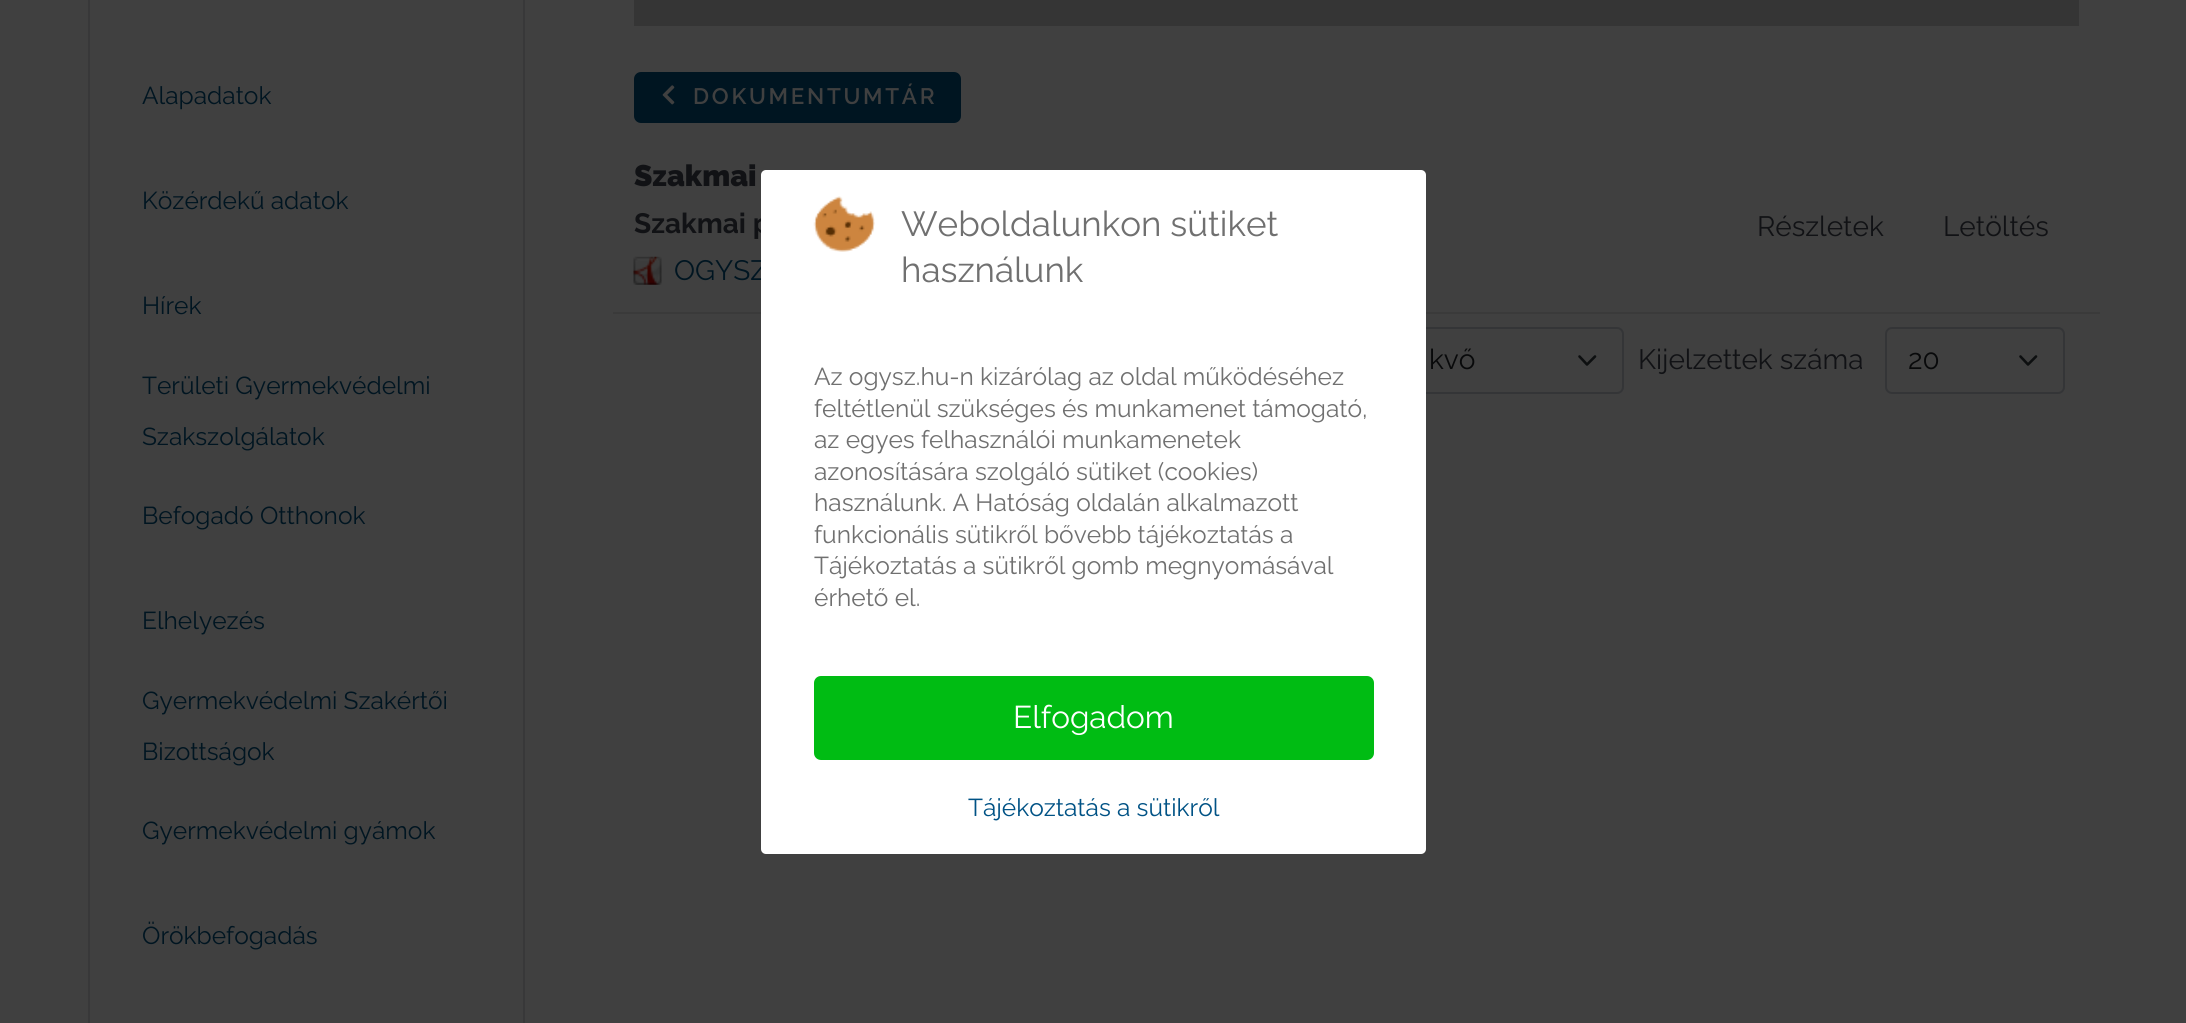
#include <cairo.h>
#include <math.h>
#include <stddef.h>

typedef struct { double x, y; const char *s; } line_t;

static void ink(cairo_t *ctx, unsigned color) {
    cairo_set_source_rgb(ctx, (color >> 16) / 255.0, (color >> 8 & 255) / 255.0, (color & 255) / 255.0);
}

static void write_spaced(cairo_t *ctx, double x, double y, const char *s, double letter, double word) {
    cairo_move_to(ctx, x, y);
    while (*s) {
        char ch[5] = {0};
        int n = 0;
        do ch[n++] = *s++; while ((*s & 0xC0) == 0x80);
        cairo_show_text(ctx, ch);
        cairo_rel_move_to(ctx, letter + word * (*ch == ' '), 0);
    }
}

static void round_path(cairo_t *ctx, double x, double y, double w, double h, double r) {
    cairo_new_sub_path(ctx);
    cairo_arc(ctx, x + w - r, y + h - r, r, 0, M_PI / 2);
    cairo_arc(ctx, x + r, y + h - r, r, M_PI / 2, M_PI);
    cairo_arc(ctx, x + r, y + r, r, M_PI, 1.5 * M_PI);
    cairo_arc(ctx, x + w - r, y + r, r, 1.5 * M_PI, 2 * M_PI);
    cairo_close_path(ctx);
}

static void paste(cairo_t *ctx, const char *path, double x, double y, double w, double h) {
    cairo_surface_t *image = cairo_image_surface_create_from_png(path);
    cairo_save(ctx);
    cairo_set_source_surface(ctx, image, x, y);
    cairo_rectangle(ctx, x, y, w, h);
    cairo_fill(ctx);
    cairo_restore(ctx);
    cairo_surface_destroy(image);
}

int main(void) {
    cairo_surface_t *surface = cairo_image_surface_create(CAIRO_FORMAT_RGB24, 2186, 1023);
    cairo_t *ctx = cairo_create(surface);
    cairo_font_options_t *options = cairo_font_options_create();
    cairo_font_options_set_hint_metrics(options, CAIRO_HINT_METRICS_OFF);
    cairo_font_options_set_hint_style(options, CAIRO_HINT_STYLE_NONE);
    cairo_set_font_options(ctx, options);
    cairo_set_miter_limit(ctx, 4);
    ink(ctx, 0x404040);
    cairo_paint(ctx);
    cairo_rectangle(ctx, 89, -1, 435, 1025);
    ink(ctx, 0x383839);
    cairo_stroke(ctx);
    cairo_select_font_face(ctx, "Raleway", CAIRO_FONT_SLANT_NORMAL, CAIRO_FONT_WEIGHT_NORMAL);
    cairo_set_font_size(ctx, 24.5);
    ink(ctx, 0x001521);
    {
        static const line_t items[] = {
            {142, 104, "Alapadatok"},
            {142, 209, "Közérdekű adatok"},
            {142, 314, "Hírek"},
            {142, 394, "Területi Gyermekvédelmi"},
            {142, 445, "Szakszolgálatok"},
            {142, 524, "Befogadó Otthonok"},
            {142, 629, "Elhelyezés"},
            {142, 709, "Gyermekvédelmi Szakértői"},
            {142, 760, "Bizottságok"},
            {142, 839, "Gyermekvédelmi gyámok"},
            {142, 944, "Örökbefogadás"},
        };
        for (size_t i = 0; i < sizeof items / sizeof *items; i++) {
            cairo_move_to(ctx, items[i].x, items[i].y);
            cairo_show_text(ctx, items[i].s);
        }
    }
    ink(ctx, 0x353535);
    cairo_rectangle(ctx, 634, 0, 1445, 26);
    cairo_fill(ctx);
    ink(ctx, 0x001521);
    round_path(ctx, 634, 72, 327, 51, 7);
    cairo_fill(ctx);
    paste(ctx, "media/1.png", 662, 85, 13, 20);
    cairo_select_font_face(ctx, "Raleway SemiBold", CAIRO_FONT_SLANT_NORMAL, CAIRO_FONT_WEIGHT_NORMAL);
    cairo_set_font_size(ctx, 22.4);
    ink(ctx, 0x404040);
    write_spaced(ctx, 693, 104, "DOKUMENTUMTÁR", 2.75, 0);
    cairo_select_font_face(ctx, "Raleway Black", CAIRO_FONT_SLANT_NORMAL, CAIRO_FONT_WEIGHT_NORMAL);
    cairo_set_font_size(ctx, 29.75);
    ink(ctx, 0x111215);
    cairo_move_to(ctx, 634, 186);
    cairo_show_text(ctx, "Szakmai");
    cairo_select_font_face(ctx, "Raleway", CAIRO_FONT_SLANT_NORMAL, CAIRO_FONT_WEIGHT_BOLD);
    cairo_set_font_size(ctx, 28);
    cairo_move_to(ctx, 634, 233);
    cairo_show_text(ctx, "Szakmai p");
    paste(ctx, "media/2.png", 633, 256, 29, 29);
    cairo_select_font_face(ctx, "Raleway", CAIRO_FONT_SLANT_NORMAL, CAIRO_FONT_WEIGHT_NORMAL);
    ink(ctx, 0x001521);
    cairo_move_to(ctx, 674, 280);
    cairo_show_text(ctx, "OGYSZ");
    ink(ctx, 0x111215);
    cairo_move_to(ctx, 1757, 236);
    cairo_show_text(ctx, "Részletek");
    cairo_move_to(ctx, 1943, 236);
    cairo_show_text(ctx, "Letöltés");
    ink(ctx, 0x3A3A3A);
    cairo_rectangle(ctx, 613, 312, 1487, 2);
    cairo_fill(ctx);
    cairo_new_path(ctx);
    cairo_move_to(ctx, 1579.5, 356.5);
    cairo_line_to(ctx, 1587, 364.5);
    cairo_line_to(ctx, 1595, 356.5);
    ink(ctx, 0x0D0F10);
    cairo_set_line_width(ctx, 2.6);
    cairo_set_line_cap(ctx, CAIRO_LINE_CAP_ROUND);
    cairo_set_line_join(ctx, CAIRO_LINE_JOIN_ROUND);
    cairo_stroke(ctx);
    round_path(ctx, 1207, 328, 416, 65, 6);
    ink(ctx, 0x343537);
    cairo_set_line_width(ctx, 2);
    cairo_set_line_cap(ctx, CAIRO_LINE_CAP_BUTT);
    cairo_set_line_join(ctx, CAIRO_LINE_JOIN_MITER);
    cairo_stroke(ctx);
    ink(ctx, 0x08090A);
    cairo_move_to(ctx, 1429, 369);
    cairo_show_text(ctx, "kvő");
    ink(ctx, 0x111215);
    cairo_move_to(ctx, 1638, 369);
    cairo_show_text(ctx, "Kijelzettek száma");
    cairo_new_path(ctx);
    cairo_move_to(ctx, 2020.5, 356.5);
    cairo_line_to(ctx, 2028, 364.5);
    cairo_line_to(ctx, 2036, 356.5);
    ink(ctx, 0x0D0F10);
    cairo_set_line_width(ctx, 2.6);
    cairo_set_line_cap(ctx, CAIRO_LINE_CAP_ROUND);
    cairo_set_line_join(ctx, CAIRO_LINE_JOIN_ROUND);
    cairo_stroke(ctx);
    round_path(ctx, 1886, 328, 178, 65, 6);
    ink(ctx, 0x343537);
    cairo_set_line_width(ctx, 2);
    cairo_set_line_cap(ctx, CAIRO_LINE_CAP_BUTT);
    cairo_set_line_join(ctx, CAIRO_LINE_JOIN_MITER);
    cairo_stroke(ctx);
    ink(ctx, 0x08090A);
    cairo_move_to(ctx, 1908, 369);
    cairo_show_text(ctx, "20");
    ink(ctx, 0xFFFFFF);
    round_path(ctx, 761, 170, 665, 684, 5);
    cairo_fill(ctx);
    paste(ctx, "media/3.png", 813, 196, 62, 56);
    cairo_set_font_size(ctx, 35);
    ink(ctx, 0x707070);
    cairo_move_to(ctx, 901, 236);
    cairo_show_text(ctx, "Weboldalunkon sütiket");
    cairo_move_to(ctx, 901, 282);
    cairo_show_text(ctx, "használunk");
    cairo_set_font_size(ctx, 24.5);
    {
        static const line_t items[] = {
            {814, 385, "Az ogysz.hu-n kizárólag az oldal működéséhez"},
            {814, 417, "feltétlenül szükséges és munkamenet támogató,"},
            {814, 448, "az egyes felhasználói munkamenetek"},
            {814, 480, "azonosítására szolgáló sütiket (cookies)"},
            {814, 511, "használunk. A Hatóság oldalán alkalmazott"},
            {814, 543, "funkcionális sütikről bővebb tájékoztatás a"},
            {814, 574, "Tájékoztatás a sütikről gomb megnyomásával"},
            {814, 606, "érhető el."},
        };
        for (size_t i = 0; i < sizeof items / sizeof *items; i++) {
            cairo_move_to(ctx, items[i].x, items[i].y);
            cairo_show_text(ctx, items[i].s);
        }
    }
    ink(ctx, 0x00BC13);
    round_path(ctx, 814, 676, 560, 84, 7);
    cairo_fill(ctx);
    cairo_set_font_size(ctx, 31.5);
    ink(ctx, 0xFFFFFF);
    cairo_move_to(ctx, 1013, 728);
    cairo_show_text(ctx, "Elfogadom");
    cairo_set_font_size(ctx, 24.5);
    ink(ctx, 0x005285);
    cairo_move_to(ctx, 968, 816);
    cairo_show_text(ctx, "Tájékoztatás a sütikről");
    cairo_surface_write_to_png(surface, "image.png");
    cairo_font_options_destroy(options);
    cairo_destroy(ctx);
    cairo_surface_destroy(surface);
    return 0;
}
